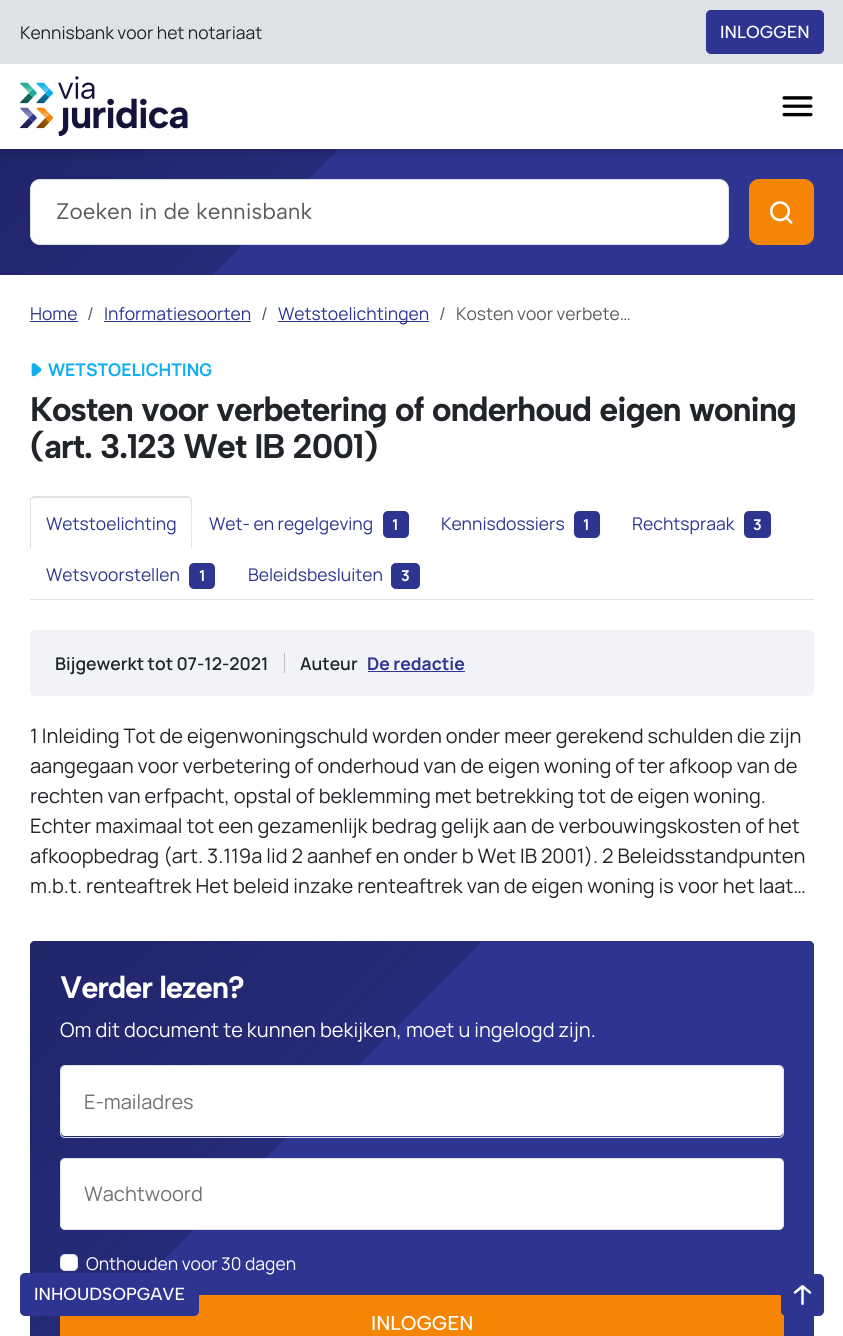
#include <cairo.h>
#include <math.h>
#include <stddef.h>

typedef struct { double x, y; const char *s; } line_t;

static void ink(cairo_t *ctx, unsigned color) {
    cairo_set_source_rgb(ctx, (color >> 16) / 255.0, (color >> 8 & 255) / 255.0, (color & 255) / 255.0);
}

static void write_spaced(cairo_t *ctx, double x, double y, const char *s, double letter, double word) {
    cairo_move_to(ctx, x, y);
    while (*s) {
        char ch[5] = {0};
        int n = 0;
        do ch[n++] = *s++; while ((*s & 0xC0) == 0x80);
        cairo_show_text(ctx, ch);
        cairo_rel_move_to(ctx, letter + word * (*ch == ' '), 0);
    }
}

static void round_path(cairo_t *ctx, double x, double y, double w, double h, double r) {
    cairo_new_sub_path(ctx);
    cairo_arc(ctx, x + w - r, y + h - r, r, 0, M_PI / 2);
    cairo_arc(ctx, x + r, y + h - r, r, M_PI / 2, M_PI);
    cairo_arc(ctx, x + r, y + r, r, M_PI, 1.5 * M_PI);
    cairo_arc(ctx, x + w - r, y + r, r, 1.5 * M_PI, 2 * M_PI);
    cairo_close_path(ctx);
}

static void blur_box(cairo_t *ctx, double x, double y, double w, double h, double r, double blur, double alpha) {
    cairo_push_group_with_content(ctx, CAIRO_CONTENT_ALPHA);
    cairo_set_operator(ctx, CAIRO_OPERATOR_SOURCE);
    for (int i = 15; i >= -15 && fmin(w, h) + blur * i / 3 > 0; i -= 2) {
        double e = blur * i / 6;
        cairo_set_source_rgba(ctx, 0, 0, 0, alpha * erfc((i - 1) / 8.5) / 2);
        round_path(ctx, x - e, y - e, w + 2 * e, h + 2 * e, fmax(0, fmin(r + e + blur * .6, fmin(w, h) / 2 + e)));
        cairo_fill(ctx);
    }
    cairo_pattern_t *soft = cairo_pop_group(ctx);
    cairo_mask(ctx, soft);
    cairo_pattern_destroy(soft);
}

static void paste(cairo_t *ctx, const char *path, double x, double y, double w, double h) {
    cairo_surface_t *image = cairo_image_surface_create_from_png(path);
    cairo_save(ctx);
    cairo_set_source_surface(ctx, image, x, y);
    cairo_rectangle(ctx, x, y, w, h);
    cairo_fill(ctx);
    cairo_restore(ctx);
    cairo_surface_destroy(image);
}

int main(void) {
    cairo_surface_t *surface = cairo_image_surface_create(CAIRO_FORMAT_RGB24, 843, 1336);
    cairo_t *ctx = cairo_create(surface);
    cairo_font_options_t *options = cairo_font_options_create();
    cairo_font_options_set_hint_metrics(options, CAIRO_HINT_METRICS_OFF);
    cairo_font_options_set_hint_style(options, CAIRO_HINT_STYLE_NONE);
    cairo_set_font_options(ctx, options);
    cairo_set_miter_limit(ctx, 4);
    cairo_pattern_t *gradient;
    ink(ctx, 0xFFFFFF);
    cairo_paint(ctx);
    gradient = cairo_pattern_create_linear(664, 454, 179, -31);
    cairo_pattern_add_color_stop_rgba(gradient, 0, 0.18, 0.208, 0.569, 1);
    cairo_pattern_add_color_stop_rgba(gradient, 0.65, 0.18, 0.208, 0.569, 1);
    cairo_pattern_add_color_stop_rgba(gradient, 0.65, 0.149, 0.169, 0.475, 1);
    cairo_pattern_add_color_stop_rgba(gradient, 1, 0.125, 0.145, 0.412, 1);
    cairo_set_source(ctx, gradient);
    cairo_pattern_destroy(gradient);
    cairo_rectangle(ctx, 0, 149, 843, 126);
    cairo_fill(ctx);
    ink(ctx, 0x000000);
    blur_box(ctx, 0, 4, 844, 149, 0, 4, 0.15);
    ink(ctx, 0xDEE2E6);
    cairo_rectangle(ctx, 0, 0, 843, 64);
    cairo_fill(ctx);
    cairo_select_font_face(ctx, "Manrope", CAIRO_FONT_SLANT_NORMAL, CAIRO_FONT_WEIGHT_NORMAL);
    cairo_set_font_size(ctx, 17.5);
    ink(ctx, 0x212529);
    cairo_move_to(ctx, 20, 39);
    cairo_show_text(ctx, "Kennisbank voor het notariaat");
    ink(ctx, 0x2E3591);
    round_path(ctx, 706.5, 10.5, 117, 43, 4.5);
    cairo_fill_preserve(ctx);
    cairo_set_line_width(ctx, 1);
    cairo_stroke(ctx);
    cairo_select_font_face(ctx, "Albert Sans Medium", CAIRO_FONT_SLANT_NORMAL, CAIRO_FONT_WEIGHT_NORMAL);
    ink(ctx, 0xFFFFFF);
    cairo_move_to(ctx, 720, 38);
    cairo_show_text(ctx, "INLOGGEN");
    cairo_rectangle(ctx, 0, 64, 843, 85);
    cairo_fill(ctx);
    paste(ctx, "media/1.png", 20, 76, 168, 60);
    paste(ctx, "media/2.png", 782, 96, 31, 21);
    round_path(ctx, 30.5, 179.5, 698, 65, 9.5);
    cairo_fill_preserve(ctx);
    ink(ctx, 0xDEE2E6);
    cairo_stroke(ctx);
    cairo_select_font_face(ctx, "Albert Sans", CAIRO_FONT_SLANT_NORMAL, CAIRO_FONT_WEIGHT_NORMAL);
    cairo_set_font_size(ctx, 22.5);
    ink(ctx, 0x595C5F);
    cairo_move_to(ctx, 56, 219);
    cairo_show_text(ctx, "Zoeken in de kennisbank");
    ink(ctx, 0xF48505);
    round_path(ctx, 749.5, 179.5, 64, 65, 9.5);
    cairo_fill_preserve(ctx);
    cairo_stroke(ctx);
    paste(ctx, "media/3.png", 770, 201, 23, 23);
    cairo_select_font_face(ctx, "Manrope", CAIRO_FONT_SLANT_NORMAL, CAIRO_FONT_WEIGHT_NORMAL);
    cairo_set_font_size(ctx, 17.5);
    ink(ctx, 0x2E3591);
    cairo_move_to(ctx, 30, 320);
    cairo_show_text(ctx, "Home");
    cairo_rectangle(ctx, 30, 321, 48, 1);
    cairo_fill(ctx);
    ink(ctx, 0x595C5F);
    cairo_move_to(ctx, 87, 320);
    cairo_show_text(ctx, "/");
    ink(ctx, 0x2E3591);
    cairo_move_to(ctx, 104, 320);
    cairo_show_text(ctx, "Informatiesoorten");
    cairo_rectangle(ctx, 104, 321, 147, 1);
    cairo_fill(ctx);
    ink(ctx, 0x595C5F);
    cairo_move_to(ctx, 261, 320);
    cairo_show_text(ctx, "/");
    ink(ctx, 0x2E3591);
    cairo_rectangle(ctx, 278, 321, 151, 1);
    cairo_fill(ctx);
    cairo_move_to(ctx, 278, 320);
    cairo_show_text(ctx, "Wetstoelichtingen");
    ink(ctx, 0x595C5F);
    cairo_move_to(ctx, 439, 320);
    cairo_show_text(ctx, "/");
    cairo_move_to(ctx, 456, 320);
    cairo_show_text(ctx, "Kosten voor verbete…");
    paste(ctx, "media/4.png", 31, 363, 11, 14);
    cairo_select_font_face(ctx, "Manrope", CAIRO_FONT_SLANT_NORMAL, CAIRO_FONT_WEIGHT_BOLD);
    ink(ctx, 0x0FAEEF);
    cairo_move_to(ctx, 48, 376);
    cairo_show_text(ctx, "WETSTOELICHTING");
    cairo_select_font_face(ctx, "Albert Sans", CAIRO_FONT_SLANT_NORMAL, CAIRO_FONT_WEIGHT_BOLD);
    cairo_set_font_size(ctx, 34.1);
    ink(ctx, 0x212529);
    write_spaced(ctx, 30, 421, "Kosten voor verbetering of onderhoud eigen woning", -1.25, 0);
    write_spaced(ctx, 30, 458, "(art. 3.123 Wet IB 2001)", -1.25, 0);
    ink(ctx, 0xDEE2E6);
    cairo_rectangle(ctx, 30, 599, 784, 1);
    cairo_fill(ctx);
    cairo_new_path(ctx);
    cairo_move_to(ctx, 35, 498);
    cairo_line_to(ctx, 32, 499);
    cairo_line_to(ctx, 31, 498);
    cairo_line_to(ctx, 33, 496);
    cairo_line_to(ctx, 189, 496);
    cairo_line_to(ctx, 191, 498);
    cairo_line_to(ctx, 190, 499);
    cairo_line_to(ctx, 188, 498);
    cairo_close_path(ctx);
    cairo_fill(ctx);
    cairo_new_path(ctx);
    cairo_move_to(ctx, 191, 498);
    cairo_curve_to(ctx, 192, 499, 192, 500, 192, 501);
    cairo_line_to(ctx, 192, 548);
    cairo_line_to(ctx, 191, 547);
    cairo_curve_to(ctx, 191, 542, 192, 500, 190, 499);
    cairo_close_path(ctx);
    cairo_fill(ctx);
    ink(ctx, 0xFFFFFF);
    cairo_new_path(ctx);
    cairo_move_to(ctx, 192, 549);
    cairo_line_to(ctx, 30, 549);
    cairo_line_to(ctx, 31, 548);
    cairo_line_to(ctx, 191, 548);
    cairo_line_to(ctx, 191, 547);
    cairo_close_path(ctx);
    cairo_fill(ctx);
    ink(ctx, 0xDEE2E6);
    cairo_new_path(ctx);
    cairo_move_to(ctx, 30, 549);
    cairo_line_to(ctx, 31, 548);
    cairo_line_to(ctx, 31, 500);
    cairo_line_to(ctx, 32, 499);
    cairo_line_to(ctx, 31, 498);
    cairo_curve_to(ctx, 30, 498, 30, 500, 30, 501);
    cairo_close_path(ctx);
    cairo_fill(ctx);
    cairo_select_font_face(ctx, "Manrope", CAIRO_FONT_SLANT_NORMAL, CAIRO_FONT_WEIGHT_NORMAL);
    cairo_set_font_size(ctx, 17.5);
    ink(ctx, 0x2E3591);
    cairo_move_to(ctx, 46, 530);
    cairo_show_text(ctx, "Wetstoelichting");
    cairo_move_to(ctx, 209, 530);
    cairo_show_text(ctx, "Wet- en regelgeving");
    round_path(ctx, 383, 511, 26, 27, 5);
    cairo_fill(ctx);
    cairo_select_font_face(ctx, "Manrope", CAIRO_FONT_SLANT_NORMAL, CAIRO_FONT_WEIGHT_BOLD);
    cairo_set_font_size(ctx, 15);
    ink(ctx, 0xFFFFFF);
    cairo_move_to(ctx, 392, 530);
    cairo_show_text(ctx, "1");
    cairo_select_font_face(ctx, "Manrope", CAIRO_FONT_SLANT_NORMAL, CAIRO_FONT_WEIGHT_NORMAL);
    cairo_set_font_size(ctx, 17.5);
    ink(ctx, 0x2E3591);
    cairo_move_to(ctx, 441, 530);
    cairo_show_text(ctx, "Kennisdossiers");
    round_path(ctx, 574, 511, 26, 27, 5);
    cairo_fill(ctx);
    cairo_select_font_face(ctx, "Manrope", CAIRO_FONT_SLANT_NORMAL, CAIRO_FONT_WEIGHT_BOLD);
    cairo_set_font_size(ctx, 15);
    ink(ctx, 0xFFFFFF);
    cairo_move_to(ctx, 583, 530);
    cairo_show_text(ctx, "1");
    cairo_select_font_face(ctx, "Manrope", CAIRO_FONT_SLANT_NORMAL, CAIRO_FONT_WEIGHT_NORMAL);
    cairo_set_font_size(ctx, 17.5);
    ink(ctx, 0x2E3591);
    cairo_move_to(ctx, 632, 530);
    cairo_show_text(ctx, "Rechtspraak");
    round_path(ctx, 744, 511, 27, 27, 5);
    cairo_fill(ctx);
    cairo_select_font_face(ctx, "Manrope", CAIRO_FONT_SLANT_NORMAL, CAIRO_FONT_WEIGHT_BOLD);
    cairo_set_font_size(ctx, 15);
    ink(ctx, 0xFFFFFF);
    cairo_move_to(ctx, 753, 530);
    cairo_show_text(ctx, "3");
    cairo_select_font_face(ctx, "Manrope", CAIRO_FONT_SLANT_NORMAL, CAIRO_FONT_WEIGHT_NORMAL);
    cairo_set_font_size(ctx, 17.5);
    ink(ctx, 0x2E3591);
    cairo_move_to(ctx, 46, 581);
    cairo_show_text(ctx, "Wetsvoorstellen");
    round_path(ctx, 189, 563, 26, 26, 5);
    cairo_fill(ctx);
    cairo_select_font_face(ctx, "Manrope", CAIRO_FONT_SLANT_NORMAL, CAIRO_FONT_WEIGHT_BOLD);
    cairo_set_font_size(ctx, 15);
    ink(ctx, 0xFFFFFF);
    cairo_move_to(ctx, 199, 581);
    cairo_show_text(ctx, "1");
    cairo_select_font_face(ctx, "Manrope", CAIRO_FONT_SLANT_NORMAL, CAIRO_FONT_WEIGHT_NORMAL);
    cairo_set_font_size(ctx, 17.5);
    ink(ctx, 0x2E3591);
    cairo_move_to(ctx, 248, 581);
    cairo_show_text(ctx, "Beleidsbesluiten");
    round_path(ctx, 391, 563, 29, 26, 5);
    cairo_fill(ctx);
    cairo_select_font_face(ctx, "Manrope", CAIRO_FONT_SLANT_NORMAL, CAIRO_FONT_WEIGHT_BOLD);
    cairo_set_font_size(ctx, 15);
    ink(ctx, 0xFFFFFF);
    cairo_move_to(ctx, 401, 581);
    cairo_show_text(ctx, "3");
    ink(ctx, 0xF2F3F8);
    round_path(ctx, 30, 630, 784, 66, 5);
    cairo_fill(ctx);
    cairo_select_font_face(ctx, "Manrope SemiBold", CAIRO_FONT_SLANT_NORMAL, CAIRO_FONT_WEIGHT_NORMAL);
    cairo_set_font_size(ctx, 17.5);
    ink(ctx, 0x212529);
    cairo_move_to(ctx, 55, 670);
    cairo_show_text(ctx, "Bijgewerkt tot 07-12-2021");
    ink(ctx, 0xBEC0C4);
    cairo_rectangle(ctx, 284, 653, 1, 20);
    cairo_fill(ctx);
    ink(ctx, 0x212529);
    cairo_move_to(ctx, 300, 670);
    cairo_show_text(ctx, "Auteur");
    cairo_select_font_face(ctx, "Manrope", CAIRO_FONT_SLANT_NORMAL, CAIRO_FONT_WEIGHT_BOLD);
    ink(ctx, 0x2E3591);
    cairo_move_to(ctx, 367, 670);
    cairo_show_text(ctx, "De redactie");
    cairo_rectangle(ctx, 368, 671, 97, 1);
    cairo_fill(ctx);
    cairo_select_font_face(ctx, "Manrope", CAIRO_FONT_SLANT_NORMAL, CAIRO_FONT_WEIGHT_NORMAL);
    cairo_set_font_size(ctx, 20);
    ink(ctx, 0x212529);
    {
        static const line_t items[] = {
            {30, 743, "1 Inleiding Tot de eigenwoningschuld worden onder meer gerekend schulden die zijn"},
            {30, 773, "aangegaan voor verbetering of onderhoud van de eigen woning of ter afkoop van de"},
            {30, 803, "rechten van erfpacht, opstal of beklemming met betrekking tot de eigen woning."},
            {30, 833, "Echter maximaal tot een gezamenlijk bedrag gelijk aan de verbouwingskosten of het"},
            {30, 863, "afkoopbedrag (art. 3.119a lid 2 aanhef en onder b Wet IB 2001). 2 Beleidsstandpunten"},
            {30, 893, "m.b.t. renteaftrek Het beleid inzake renteaftrek van de eigen woning is voor het laat…"},
        };
        for (size_t i = 0; i < sizeof items / sizeof *items; i++) {
            cairo_move_to(ctx, items[i].x, items[i].y);
            cairo_show_text(ctx, items[i].s);
        }
    }
    ink(ctx, 0x2E3591);
    round_path(ctx, 30, 941, 784, 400, 5);
    cairo_fill(ctx);
    gradient = cairo_pattern_create_linear(745, 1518, 99, 872);
    cairo_pattern_add_color_stop_rgba(gradient, 0, 0.18, 0.208, 0.569, 1);
    cairo_pattern_add_color_stop_rgba(gradient, 0.65, 0.18, 0.208, 0.569, 1);
    cairo_pattern_add_color_stop_rgba(gradient, 0.65, 0.125, 0.145, 0.412, 0.6);
    cairo_pattern_add_color_stop_rgba(gradient, 1, 0.125, 0.145, 0.412, 1);
    cairo_set_source(ctx, gradient);
    cairo_pattern_destroy(gradient);
    round_path(ctx, 30, 941, 784, 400, 5);
    cairo_fill(ctx);
    cairo_select_font_face(ctx, "Albert Sans", CAIRO_FONT_SLANT_NORMAL, CAIRO_FONT_WEIGHT_BOLD);
    cairo_set_font_size(ctx, 31);
    ink(ctx, 0xFFFFFF);
    write_spaced(ctx, 60, 998, "Verder lezen?", -1.25, 0);
    cairo_select_font_face(ctx, "Manrope", CAIRO_FONT_SLANT_NORMAL, CAIRO_FONT_WEIGHT_NORMAL);
    cairo_set_font_size(ctx, 20);
    cairo_move_to(ctx, 60, 1037);
    cairo_show_text(ctx, "Om dit document te kunnen bekijken, moet u ingelogd zijn.");
    round_path(ctx, 61, 1066, 722, 70, 4);
    cairo_fill(ctx);
    round_path(ctx, 60.5, 1065.5, 723, 72, 4.5);
    ink(ctx, 0xDEE2E6);
    cairo_stroke(ctx);
    ink(ctx, 0x6F7174);
    cairo_move_to(ctx, 84, 1109);
    cairo_show_text(ctx, "E-mailadres");
    ink(ctx, 0xFFFFFF);
    round_path(ctx, 60.5, 1158.5, 723, 71, 4.5);
    cairo_fill_preserve(ctx);
    ink(ctx, 0xDEE2E6);
    cairo_stroke(ctx);
    ink(ctx, 0x6F7174);
    cairo_move_to(ctx, 84, 1201);
    cairo_show_text(ctx, "Wachtwoord");
    ink(ctx, 0xFFFFFF);
    round_path(ctx, 60.5, 1254.5, 17, 16, 4.5);
    cairo_fill_preserve(ctx);
    ink(ctx, 0xDEE2E6);
    cairo_stroke(ctx);
    cairo_set_font_size(ctx, 17.5);
    ink(ctx, 0xFFFFFF);
    cairo_move_to(ctx, 86, 1270);
    cairo_show_text(ctx, "Onthouden voor 30 dagen");
    ink(ctx, 0xF48505);
    round_path(ctx, 60.5, 1295.5, 723, 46, 4.5);
    cairo_fill_preserve(ctx);
    cairo_stroke(ctx);
    cairo_select_font_face(ctx, "Albert Sans Medium", CAIRO_FONT_SLANT_NORMAL, CAIRO_FONT_WEIGHT_NORMAL);
    cairo_set_font_size(ctx, 20);
    ink(ctx, 0xFFFFFF);
    cairo_move_to(ctx, 371, 1330);
    cairo_show_text(ctx, "INLOGGEN");
    ink(ctx, 0x2E3591);
    round_path(ctx, 20.5, 1273.5, 178, 42, 4.5);
    cairo_fill_preserve(ctx);
    cairo_stroke(ctx);
    cairo_set_font_size(ctx, 17.5);
    ink(ctx, 0xFFFFFF);
    cairo_move_to(ctx, 34, 1300);
    cairo_show_text(ctx, "INHOUDSOPGAVE");
    ink(ctx, 0x2E3591);
    round_path(ctx, 781.5, 1274.5, 42, 41, 4.5);
    cairo_fill_preserve(ctx);
    cairo_stroke(ctx);
    paste(ctx, "media/5.png", 793, 1285, 19, 20);
    cairo_surface_write_to_png(surface, "image.png");
    cairo_font_options_destroy(options);
    cairo_destroy(ctx);
    cairo_surface_destroy(surface);
    return 0;
}
